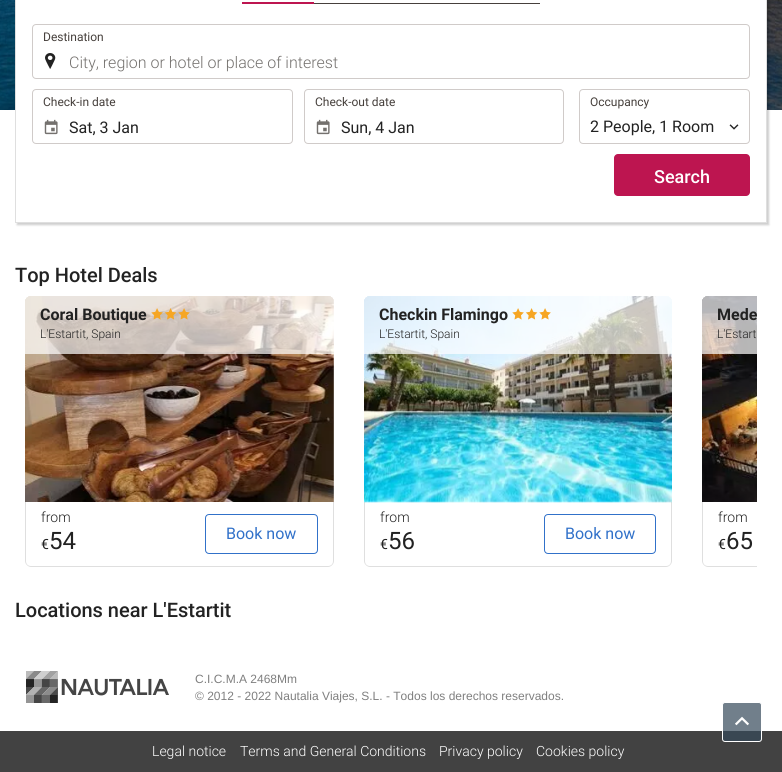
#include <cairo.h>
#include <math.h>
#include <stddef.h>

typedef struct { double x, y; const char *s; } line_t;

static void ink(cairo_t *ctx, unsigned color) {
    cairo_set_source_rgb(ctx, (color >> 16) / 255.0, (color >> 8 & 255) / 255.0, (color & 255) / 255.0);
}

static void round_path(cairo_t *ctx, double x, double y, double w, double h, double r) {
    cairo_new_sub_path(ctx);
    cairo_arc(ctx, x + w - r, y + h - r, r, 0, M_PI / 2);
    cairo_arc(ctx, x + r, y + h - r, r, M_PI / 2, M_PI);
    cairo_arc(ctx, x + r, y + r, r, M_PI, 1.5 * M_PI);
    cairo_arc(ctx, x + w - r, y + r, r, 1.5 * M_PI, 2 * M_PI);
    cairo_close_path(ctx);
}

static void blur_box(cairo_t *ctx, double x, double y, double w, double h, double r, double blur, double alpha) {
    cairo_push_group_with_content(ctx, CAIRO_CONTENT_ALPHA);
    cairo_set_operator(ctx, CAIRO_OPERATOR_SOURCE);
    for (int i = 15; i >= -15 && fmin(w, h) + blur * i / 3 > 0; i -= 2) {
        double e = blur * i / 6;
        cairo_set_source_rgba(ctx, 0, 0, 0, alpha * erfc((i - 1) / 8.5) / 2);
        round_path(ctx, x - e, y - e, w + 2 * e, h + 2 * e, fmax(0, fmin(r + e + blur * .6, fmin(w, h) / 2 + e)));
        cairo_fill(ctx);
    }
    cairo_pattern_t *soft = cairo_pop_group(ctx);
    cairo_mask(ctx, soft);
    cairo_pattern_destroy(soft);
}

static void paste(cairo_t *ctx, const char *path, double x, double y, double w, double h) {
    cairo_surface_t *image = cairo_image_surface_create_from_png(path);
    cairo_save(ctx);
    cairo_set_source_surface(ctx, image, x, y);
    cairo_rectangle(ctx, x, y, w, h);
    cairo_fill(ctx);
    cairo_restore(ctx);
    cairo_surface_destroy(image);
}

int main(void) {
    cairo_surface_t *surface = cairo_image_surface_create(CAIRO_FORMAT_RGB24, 782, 772);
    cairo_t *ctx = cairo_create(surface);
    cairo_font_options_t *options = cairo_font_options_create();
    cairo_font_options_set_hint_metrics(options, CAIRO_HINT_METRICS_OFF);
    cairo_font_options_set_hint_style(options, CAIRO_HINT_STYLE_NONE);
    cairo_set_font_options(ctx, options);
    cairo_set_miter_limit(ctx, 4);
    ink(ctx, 0xFFFFFF);
    cairo_paint(ctx);
    paste(ctx, "media/1.png", 0, 0, 782, 110);
    ink(ctx, 0x000000);
    blur_box(ctx, 17, -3, 752, 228, 0, 1, 0.2);
    ink(ctx, 0xFFFFFF);
    cairo_rectangle(ctx, 15.5, -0.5, 751, 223);
    cairo_fill_preserve(ctx);
    ink(ctx, 0xDFDFDF);
    cairo_set_line_width(ctx, 1);
    cairo_stroke(ctx);
    ink(ctx, 0xBD1550);
    cairo_rectangle(ctx, 242, 2, 72, 2);
    cairo_fill(ctx);
    ink(ctx, 0x46403C);
    cairo_rectangle(ctx, 314, 3, 226, 1);
    cairo_fill(ctx);
    paste(ctx, "media/2.png", 45, 53, 11, 16);
    round_path(ctx, 32.5, 24.5, 717, 54, 3.5);
    ink(ctx, 0xD0CBC9);
    cairo_stroke(ctx);
    cairo_select_font_face(ctx, "Roboto", CAIRO_FONT_SLANT_NORMAL, CAIRO_FONT_WEIGHT_NORMAL);
    cairo_set_font_size(ctx, 12);
    ink(ctx, 0x46403C);
    cairo_move_to(ctx, 43, 41);
    cairo_show_text(ctx, "Destination");
    cairo_select_font_face(ctx, "Roboto Light", CAIRO_FONT_SLANT_NORMAL, CAIRO_FONT_WEIGHT_NORMAL);
    cairo_set_font_size(ctx, 16);
    ink(ctx, 0x74716E);
    cairo_move_to(ctx, 69, 68);
    cairo_show_text(ctx, "City, region or hotel or place of interest");
    paste(ctx, "media/3.png", 44, 119, 14, 16);
    round_path(ctx, 32.5, 89.5, 260, 54, 3.5);
    ink(ctx, 0xD0CBC9);
    cairo_stroke(ctx);
    cairo_select_font_face(ctx, "Roboto", CAIRO_FONT_SLANT_NORMAL, CAIRO_FONT_WEIGHT_NORMAL);
    cairo_set_font_size(ctx, 12);
    ink(ctx, 0x46403C);
    cairo_move_to(ctx, 43, 106);
    cairo_show_text(ctx, "Check-in date");
    cairo_set_font_size(ctx, 16);
    ink(ctx, 0x222222);
    cairo_move_to(ctx, 69, 133);
    cairo_show_text(ctx, "Sat, 3 Jan");
    paste(ctx, "media/3.png", 316, 119, 14, 16);
    round_path(ctx, 304.5, 89.5, 259, 54, 3.5);
    ink(ctx, 0xD0CBC9);
    cairo_stroke(ctx);
    cairo_set_font_size(ctx, 12);
    ink(ctx, 0x46403C);
    cairo_move_to(ctx, 315, 106);
    cairo_show_text(ctx, "Check-out date");
    cairo_set_font_size(ctx, 16);
    ink(ctx, 0x222222);
    cairo_move_to(ctx, 341, 133);
    cairo_show_text(ctx, "Sun, 4 Jan");
    round_path(ctx, 579.5, 89.5, 170, 54, 3.5);
    ink(ctx, 0xD0CBC9);
    cairo_stroke(ctx);
    cairo_set_font_size(ctx, 12);
    ink(ctx, 0x46403C);
    cairo_move_to(ctx, 590, 106);
    cairo_show_text(ctx, "Occupancy");
    cairo_set_font_size(ctx, 16);
    ink(ctx, 0x222222);
    cairo_move_to(ctx, 590, 132);
    cairo_show_text(ctx, "2 People, 1 Room");
    paste(ctx, "media/4.png", 729, 124, 10, 6);
    ink(ctx, 0xBD1550);
    round_path(ctx, 614, 154, 136, 42, 4);
    cairo_fill(ctx);
    cairo_select_font_face(ctx, "Roboto Medium", CAIRO_FONT_SLANT_NORMAL, CAIRO_FONT_WEIGHT_NORMAL);
    cairo_set_font_size(ctx, 18);
    ink(ctx, 0xFFFFFF);
    cairo_move_to(ctx, 654, 183);
    cairo_show_text(ctx, "Search");
    cairo_set_font_size(ctx, 20);
    ink(ctx, 0x222222);
    cairo_move_to(ctx, 15, 282);
    cairo_show_text(ctx, "Top Hotel Deals");
    paste(ctx, "media/5.png", 25, 296, 309, 206);
    cairo_set_source_rgba(ctx, 1, 1, 1, 0.7);
    cairo_new_path(ctx);
    cairo_move_to(ctx, 31, 296);
    cairo_line_to(ctx, 328, 296);
    cairo_curve_to(ctx, 331.5, 296, 334, 298.5, 334, 302);
    cairo_line_to(ctx, 334, 354);
    cairo_line_to(ctx, 25, 354);
    cairo_line_to(ctx, 25, 302);
    cairo_curve_to(ctx, 25, 298.5, 27.5, 296, 31, 296);
    cairo_close_path(ctx);
    cairo_fill(ctx);
    cairo_select_font_face(ctx, "Roboto", CAIRO_FONT_SLANT_NORMAL, CAIRO_FONT_WEIGHT_BOLD);
    cairo_set_font_size(ctx, 16);
    ink(ctx, 0x222222);
    cairo_move_to(ctx, 40, 320);
    cairo_show_text(ctx, "Coral Boutique");
    paste(ctx, "media/6.png", 151, 308, 39, 12);
    cairo_select_font_face(ctx, "Roboto Light", CAIRO_FONT_SLANT_NORMAL, CAIRO_FONT_WEIGHT_NORMAL);
    cairo_set_font_size(ctx, 12);
    cairo_move_to(ctx, 40, 338);
    cairo_show_text(ctx, "L'Estartit, Spain");
    ink(ctx, 0xDFDFDF);
    cairo_set_fill_rule(ctx, CAIRO_FILL_RULE_EVEN_ODD);
    cairo_new_path(ctx);
    cairo_move_to(ctx, 25, 502);
    cairo_line_to(ctx, 334, 502);
    cairo_line_to(ctx, 334, 561);
    cairo_curve_to(ctx, 334, 564, 331, 567, 328, 567);
    cairo_line_to(ctx, 31, 567);
    cairo_curve_to(ctx, 28, 567, 25, 564, 25, 561);
    cairo_close_path(ctx);
    cairo_move_to(ctx, 26, 502);
    cairo_line_to(ctx, 333, 502);
    cairo_line_to(ctx, 333, 561);
    cairo_curve_to(ctx, 333, 564, 331, 566, 328, 566);
    cairo_line_to(ctx, 31, 566);
    cairo_curve_to(ctx, 28, 566, 26, 564, 26, 561);
    cairo_close_path(ctx);
    cairo_fill(ctx);
    cairo_set_font_size(ctx, 14);
    ink(ctx, 0x222222);
    cairo_move_to(ctx, 41, 522);
    cairo_show_text(ctx, "from");
    cairo_select_font_face(ctx, "Roboto", CAIRO_FONT_SLANT_NORMAL, CAIRO_FONT_WEIGHT_NORMAL);
    cairo_move_to(ctx, 41, 549);
    cairo_show_text(ctx, "€");
    cairo_set_font_size(ctx, 24);
    cairo_move_to(ctx, 49, 549);
    cairo_show_text(ctx, "54");
    round_path(ctx, 205.5, 514.5, 112, 39, 3.5);
    ink(ctx, 0x3171C9);
    cairo_stroke(ctx);
    cairo_set_font_size(ctx, 16);
    cairo_move_to(ctx, 226, 539);
    cairo_show_text(ctx, "Book now");
    ink(ctx, 0xDFDFDF);
    cairo_new_path(ctx);
    cairo_move_to(ctx, 364, 502);
    cairo_line_to(ctx, 672, 502);
    cairo_line_to(ctx, 672, 561);
    cairo_curve_to(ctx, 672, 564, 669, 567, 666, 567);
    cairo_line_to(ctx, 370, 567);
    cairo_curve_to(ctx, 367, 567, 364, 564, 364, 561);
    cairo_close_path(ctx);
    cairo_move_to(ctx, 365, 502);
    cairo_line_to(ctx, 671, 502);
    cairo_line_to(ctx, 671, 561);
    cairo_curve_to(ctx, 671, 564, 669, 566, 666, 566);
    cairo_line_to(ctx, 370, 566);
    cairo_curve_to(ctx, 367, 566, 365, 564, 365, 561);
    cairo_close_path(ctx);
    cairo_fill(ctx);
    paste(ctx, "media/7.png", 364, 296, 308, 207);
    cairo_set_source_rgba(ctx, 1, 1, 1, 0.7);
    cairo_new_path(ctx);
    cairo_move_to(ctx, 370, 296);
    cairo_line_to(ctx, 666, 296);
    cairo_curve_to(ctx, 669.5, 296, 672, 298.5, 672, 302);
    cairo_line_to(ctx, 672, 354);
    cairo_line_to(ctx, 364, 354);
    cairo_line_to(ctx, 364, 302);
    cairo_curve_to(ctx, 364, 298.5, 366.5, 296, 370, 296);
    cairo_close_path(ctx);
    cairo_fill(ctx);
    cairo_select_font_face(ctx, "Roboto", CAIRO_FONT_SLANT_NORMAL, CAIRO_FONT_WEIGHT_BOLD);
    ink(ctx, 0x222222);
    cairo_move_to(ctx, 379, 320);
    cairo_show_text(ctx, "Checkin Flamingo");
    paste(ctx, "media/8.png", 512, 308, 39, 12);
    cairo_select_font_face(ctx, "Roboto Light", CAIRO_FONT_SLANT_NORMAL, CAIRO_FONT_WEIGHT_NORMAL);
    cairo_set_font_size(ctx, 12);
    cairo_move_to(ctx, 379, 338);
    cairo_show_text(ctx, "L'Estartit, Spain");
    cairo_set_font_size(ctx, 14);
    cairo_move_to(ctx, 380, 522);
    cairo_show_text(ctx, "from");
    cairo_select_font_face(ctx, "Roboto", CAIRO_FONT_SLANT_NORMAL, CAIRO_FONT_WEIGHT_NORMAL);
    cairo_move_to(ctx, 380, 549);
    cairo_show_text(ctx, "€");
    cairo_set_font_size(ctx, 24);
    cairo_move_to(ctx, 388, 549);
    cairo_show_text(ctx, "56");
    round_path(ctx, 544.5, 514.5, 111, 39, 3.5);
    ink(ctx, 0x3171C9);
    cairo_stroke(ctx);
    cairo_set_font_size(ctx, 16);
    cairo_move_to(ctx, 565, 539);
    cairo_show_text(ctx, "Book now");
    paste(ctx, "media/9.png", 702, 296, 55, 206);
    cairo_set_source_rgba(ctx, 1, 1, 1, 0.7);
    cairo_new_path(ctx);
    cairo_move_to(ctx, 708, 296);
    cairo_line_to(ctx, 757, 296);
    cairo_line_to(ctx, 757, 354);
    cairo_line_to(ctx, 702, 354);
    cairo_line_to(ctx, 702, 302);
    cairo_curve_to(ctx, 702, 298.5, 704.5, 296, 708, 296);
    cairo_close_path(ctx);
    cairo_fill(ctx);
    cairo_save(ctx);
    cairo_set_fill_rule(ctx, CAIRO_FILL_RULE_WINDING);
    cairo_rectangle(ctx, 25, 296, 732, 271);
    cairo_clip(ctx);
    cairo_select_font_face(ctx, "Roboto", CAIRO_FONT_SLANT_NORMAL, CAIRO_FONT_WEIGHT_BOLD);
    ink(ctx, 0x222222);
    cairo_move_to(ctx, 717, 320);
    cairo_show_text(ctx, "Mede");
    cairo_restore(ctx);
    cairo_select_font_face(ctx, "Roboto Light", CAIRO_FONT_SLANT_NORMAL, CAIRO_FONT_WEIGHT_NORMAL);
    cairo_set_font_size(ctx, 12);
    ink(ctx, 0x222222);
    cairo_move_to(ctx, 717, 338);
    cairo_show_text(ctx, "L'Estart");
    cairo_save(ctx);
    cairo_set_fill_rule(ctx, CAIRO_FILL_RULE_WINDING);
    cairo_rectangle(ctx, 25, 296, 732, 271);
    cairo_clip(ctx);
    ink(ctx, 0xDFDFDF);
    cairo_set_fill_rule(ctx, CAIRO_FILL_RULE_EVEN_ODD);
    cairo_new_path(ctx);
    cairo_move_to(ctx, 702, 502);
    cairo_line_to(ctx, 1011, 502);
    cairo_line_to(ctx, 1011, 561);
    cairo_curve_to(ctx, 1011, 564, 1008, 567, 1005, 567);
    cairo_line_to(ctx, 708, 567);
    cairo_curve_to(ctx, 705, 567, 702, 564, 702, 561);
    cairo_close_path(ctx);
    cairo_move_to(ctx, 703, 502);
    cairo_line_to(ctx, 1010, 502);
    cairo_line_to(ctx, 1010, 561);
    cairo_curve_to(ctx, 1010, 564, 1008, 566, 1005, 566);
    cairo_line_to(ctx, 708, 566);
    cairo_curve_to(ctx, 705, 566, 703, 564, 703, 561);
    cairo_close_path(ctx);
    cairo_fill(ctx);
    cairo_restore(ctx);
    cairo_set_font_size(ctx, 14);
    cairo_move_to(ctx, 718, 522);
    cairo_show_text(ctx, "from");
    cairo_select_font_face(ctx, "Roboto", CAIRO_FONT_SLANT_NORMAL, CAIRO_FONT_WEIGHT_NORMAL);
    cairo_move_to(ctx, 718, 549);
    cairo_show_text(ctx, "€");
    cairo_set_font_size(ctx, 24);
    cairo_move_to(ctx, 726, 549);
    cairo_show_text(ctx, "65");
    cairo_select_font_face(ctx, "Roboto Medium", CAIRO_FONT_SLANT_NORMAL, CAIRO_FONT_WEIGHT_NORMAL);
    cairo_set_font_size(ctx, 20);
    cairo_move_to(ctx, 15, 617);
    cairo_show_text(ctx, "Locations near L'Estartit");
    paste(ctx, "media/10.png", 26, 671, 143, 32);
    cairo_select_font_face(ctx, "Liberation Sans", CAIRO_FONT_SLANT_NORMAL, CAIRO_FONT_WEIGHT_NORMAL);
    cairo_set_font_size(ctx, 12);
    ink(ctx, 0x7F7F7F);
    cairo_move_to(ctx, 195, 683);
    cairo_show_text(ctx, "C.I.C.M.A 2468Mm");
    cairo_move_to(ctx, 195, 700);
    cairo_show_text(ctx, "© 2012 - 2022 Nautalia Viajes, S.L. - Todos los derechos reservados.");
    ink(ctx, 0x424242);
    cairo_rectangle(ctx, 0, 731, 782, 41);
    cairo_fill(ctx);
    cairo_set_source_rgba(ctx, 0.208, 0.286, 0.353, 0.7);
    round_path(ctx, 722.5, 702.5, 39, 39, 2.5);
    cairo_fill_preserve(ctx);
    ink(ctx, 0xFFFFFF);
    cairo_stroke(ctx);
    paste(ctx, "media/11.png", 735, 716, 14, 10);
    cairo_select_font_face(ctx, "Roboto Light", CAIRO_FONT_SLANT_NORMAL, CAIRO_FONT_WEIGHT_NORMAL);
    cairo_set_font_size(ctx, 14);
    {
        static const line_t items[] = {
            {152, 756, "Legal notice"},
            {240, 756, "Terms and General Conditions"},
            {439, 756, "Privacy policy"},
            {536, 756, "Cookies policy"},
        };
        for (size_t i = 0; i < sizeof items / sizeof *items; i++) {
            cairo_move_to(ctx, items[i].x, items[i].y);
            cairo_show_text(ctx, items[i].s);
        }
    }
    cairo_surface_write_to_png(surface, "image.png");
    cairo_font_options_destroy(options);
    cairo_destroy(ctx);
    cairo_surface_destroy(surface);
    return 0;
}
